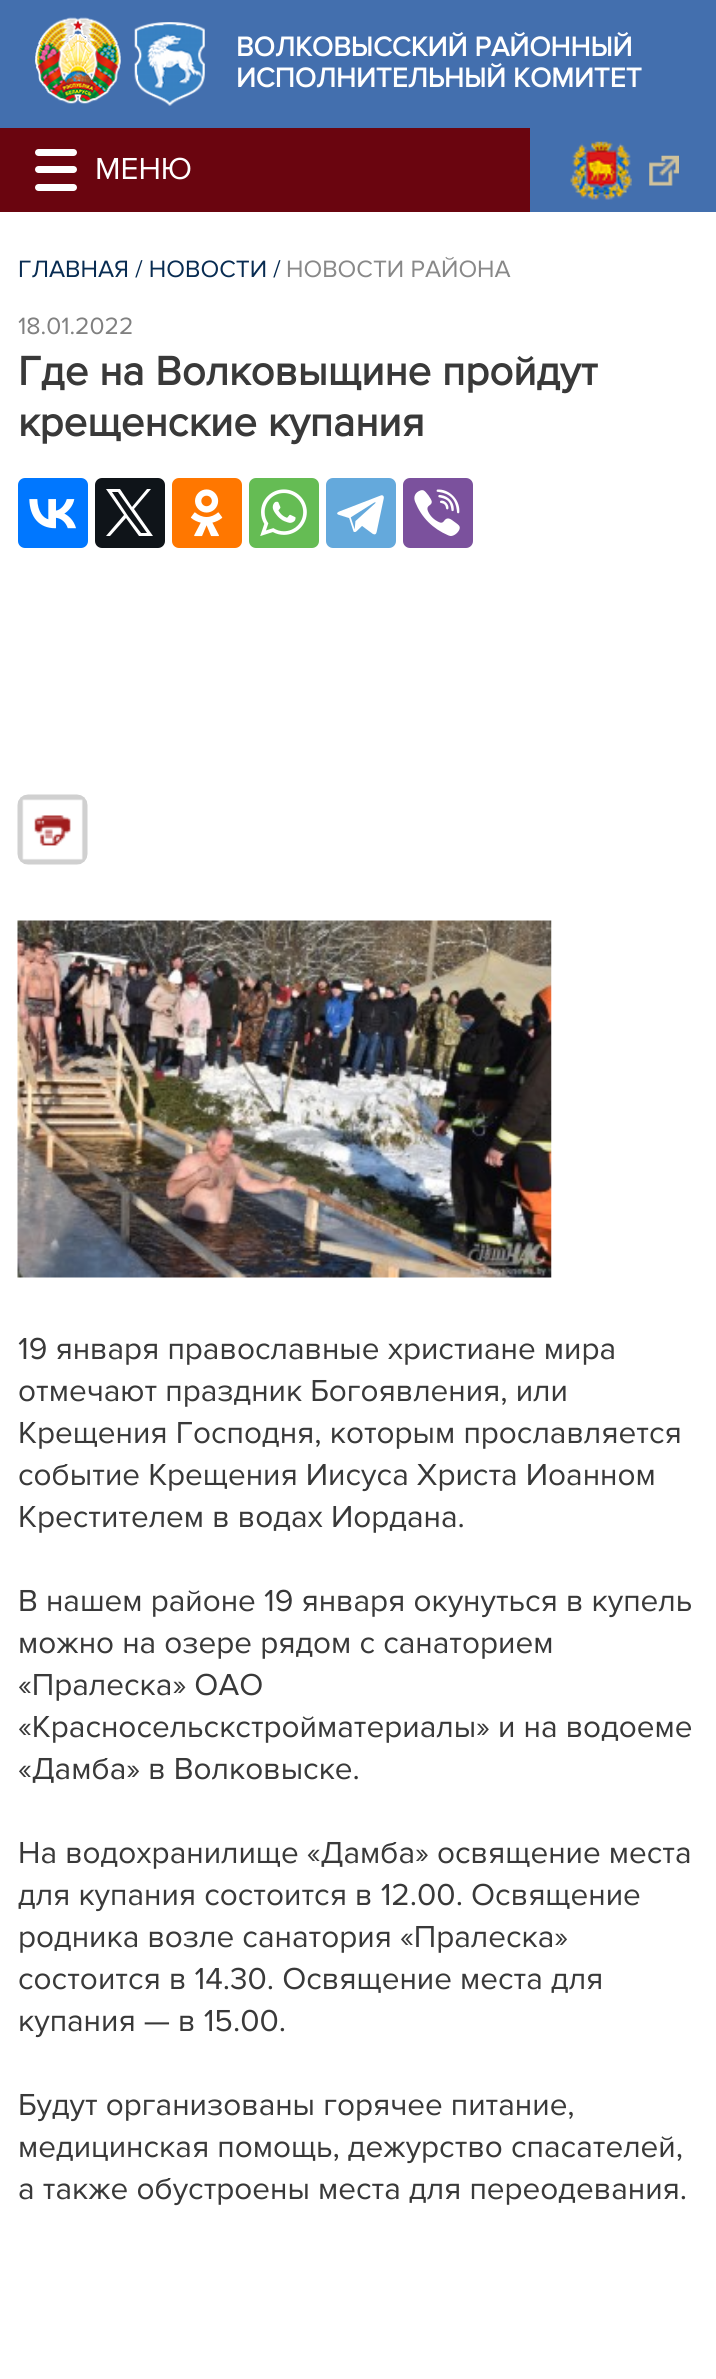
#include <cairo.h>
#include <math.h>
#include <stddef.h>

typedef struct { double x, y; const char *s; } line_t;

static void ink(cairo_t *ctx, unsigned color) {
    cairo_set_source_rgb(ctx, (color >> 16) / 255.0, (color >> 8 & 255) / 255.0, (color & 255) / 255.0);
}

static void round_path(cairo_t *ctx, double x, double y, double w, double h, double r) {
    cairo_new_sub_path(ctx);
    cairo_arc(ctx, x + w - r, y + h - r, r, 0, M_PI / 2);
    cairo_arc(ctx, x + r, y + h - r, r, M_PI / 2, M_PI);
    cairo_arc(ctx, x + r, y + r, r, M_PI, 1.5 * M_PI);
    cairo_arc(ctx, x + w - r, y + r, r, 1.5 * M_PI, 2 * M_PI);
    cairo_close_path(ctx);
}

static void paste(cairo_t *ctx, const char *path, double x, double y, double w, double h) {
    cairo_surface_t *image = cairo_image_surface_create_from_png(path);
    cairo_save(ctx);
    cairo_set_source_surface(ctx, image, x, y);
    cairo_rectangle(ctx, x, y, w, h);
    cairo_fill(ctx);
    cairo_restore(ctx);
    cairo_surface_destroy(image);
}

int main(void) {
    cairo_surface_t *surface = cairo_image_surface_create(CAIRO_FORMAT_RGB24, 716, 2379);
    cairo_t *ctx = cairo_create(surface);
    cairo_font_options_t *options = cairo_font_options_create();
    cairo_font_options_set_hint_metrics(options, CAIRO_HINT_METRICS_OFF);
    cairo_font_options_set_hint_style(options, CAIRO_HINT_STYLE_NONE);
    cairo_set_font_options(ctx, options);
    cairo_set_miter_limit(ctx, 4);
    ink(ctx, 0xFFFFFF);
    cairo_paint(ctx);
    ink(ctx, 0x436FAE);
    cairo_rectangle(ctx, 0, 0, 716, 128);
    cairo_fill(ctx);
    paste(ctx, "media/1.png", 35, 17, 86, 87);
    paste(ctx, "media/2.png", 134, 22, 71, 84);
    cairo_select_font_face(ctx, "Proxima Nova", CAIRO_FONT_SLANT_NORMAL, CAIRO_FONT_WEIGHT_BOLD);
    cairo_set_font_size(ctx, 28);
    ink(ctx, 0xFFFFFF);
    cairo_move_to(ctx, 236, 56);
    cairo_show_text(ctx, "ВОЛКОВЫССКИЙ РАЙОННЫЙ");
    cairo_move_to(ctx, 236, 87);
    cairo_show_text(ctx, "ИСПОЛНИТЕЛЬНЫЙ КОМИТЕТ");
    ink(ctx, 0x6A050F);
    cairo_rectangle(ctx, 0, 128, 530, 84);
    cairo_fill(ctx);
    ink(ctx, 0x436FAE);
    cairo_rectangle(ctx, 530, 128, 186, 84);
    cairo_fill(ctx);
    paste(ctx, "media/3.png", 570, 141, 62, 59);
    paste(ctx, "media/4.png", 649, 155, 30, 31);
    ink(ctx, 0xFFFFFF);
    round_path(ctx, 35, 166, 42, 7, 3.5);
    cairo_fill(ctx);
    round_path(ctx, 35, 149, 42, 7, 3.5);
    cairo_fill(ctx);
    round_path(ctx, 35, 184, 42, 7, 3.5);
    cairo_fill(ctx);
    cairo_select_font_face(ctx, "Proxima Nova", CAIRO_FONT_SLANT_NORMAL, CAIRO_FONT_WEIGHT_NORMAL);
    cairo_set_font_size(ctx, 31.5);
    cairo_move_to(ctx, 95, 179);
    cairo_show_text(ctx, "МЕНЮ");
    cairo_set_font_size(ctx, 24.5);
    ink(ctx, 0x082C52);
    cairo_move_to(ctx, 18, 277);
    cairo_show_text(ctx, "ГЛАВНАЯ / НОВОСТИ /");
    ink(ctx, 0x888888);
    cairo_move_to(ctx, 286, 277);
    cairo_show_text(ctx, "НОВОСТИ РАЙОНА");
    ink(ctx, 0x808080);
    cairo_move_to(ctx, 18, 334);
    cairo_show_text(ctx, "18.01.2022");
    cairo_select_font_face(ctx, "Proxima Nova", CAIRO_FONT_SLANT_NORMAL, CAIRO_FONT_WEIGHT_BOLD);
    cairo_set_font_size(ctx, 42);
    ink(ctx, 0x393939);
    cairo_move_to(ctx, 18, 385);
    cairo_show_text(ctx, "Где на Волковыщине пройдут");
    cairo_move_to(ctx, 18, 436);
    cairo_show_text(ctx, "крещенские купания");
    ink(ctx, 0x0077FF);
    round_path(ctx, 18, 478, 70, 70, 7);
    cairo_fill(ctx);
    paste(ctx, "media/5.png", 29, 499, 47, 30);
    ink(ctx, 0x0F1419);
    round_path(ctx, 95, 478, 70, 70, 7);
    cairo_fill(ctx);
    ink(ctx, 0xFFFFFF);
    cairo_new_path(ctx);
    cairo_move_to(ctx, 134, 509);
    cairo_line_to(ctx, 151, 489);
    cairo_line_to(ctx, 147, 489);
    cairo_line_to(ctx, 132, 507);
    cairo_line_to(ctx, 120, 489);
    cairo_line_to(ctx, 106, 489);
    cairo_line_to(ctx, 124, 515);
    cairo_line_to(ctx, 106, 536);
    cairo_line_to(ctx, 110, 536);
    cairo_line_to(ctx, 126, 518);
    cairo_line_to(ctx, 139, 536);
    cairo_line_to(ctx, 153, 536);
    cairo_close_path(ctx);
    cairo_move_to(ctx, 128, 516);
    cairo_line_to(ctx, 112, 492);
    cairo_line_to(ctx, 118, 492);
    cairo_line_to(ctx, 147, 533);
    cairo_line_to(ctx, 141, 533);
    cairo_close_path(ctx);
    cairo_fill(ctx);
    ink(ctx, 0xFF7700);
    round_path(ctx, 172, 478, 70, 70, 7);
    cairo_fill(ctx);
    paste(ctx, "media/6.png", 190, 489, 33, 48);
    ink(ctx, 0x65BC54);
    round_path(ctx, 249, 478, 70, 70, 7);
    cairo_fill(ctx);
    paste(ctx, "media/7.png", 260, 489, 47, 47);
    ink(ctx, 0x64A9DC);
    round_path(ctx, 326, 478, 70, 70, 7);
    cairo_fill(ctx);
    paste(ctx, "media/8.png", 337, 495, 47, 40);
    ink(ctx, 0x7B519D);
    round_path(ctx, 403, 478, 70, 70, 7);
    cairo_fill(ctx);
    paste(ctx, "media/9.png", 414, 489, 46, 47);
    paste(ctx, "media/10.png", 17, 794, 71, 71);
    paste(ctx, "media/11.png", 17, 920, 535, 358);
    cairo_select_font_face(ctx, "Proxima Nova", CAIRO_FONT_SLANT_NORMAL, CAIRO_FONT_WEIGHT_NORMAL);
    cairo_set_font_size(ctx, 31.5);
    ink(ctx, 0x393939);
    {
        static const line_t items[] = {
            {18, 1359, "19 января православные христиане мира"},
            {18, 1401, "отмечают праздник Богоявления, или"},
            {18, 1443, "Крещения Господня, которым прославляется"},
            {18, 1485, "событие Крещения Иисуса Христа Иоанном"},
            {18, 1527, "Крестителем в водах Иордана."},
            {18, 1611, "В нашем районе 19 января окунуться в купель"},
            {18, 1653, "можно на озере рядом с санаторием"},
            {18, 1695, "«Пралеска» ОАО"},
            {18, 1737, "«Красносельскстройматериалы» и на водоеме"},
            {18, 1779, "«Дамба» в Волковыске."},
            {18, 1863, "На водохранилище «Дамба» освящение места"},
            {18, 1905, "для купания состоится в 12.00. Освящение"},
            {18, 1947, "родника возле санатория «Пралеска»"},
            {18, 1989, "состоится в 14.30. Освящение места для"},
            {18, 2031, "купания — в 15.00."},
            {18, 2115, "Будут организованы горячее питание,"},
            {18, 2157, "медицинская помощь, дежурство спасателей,"},
            {18, 2199, "а также обустроены места для переодевания."},
        };
        for (size_t i = 0; i < sizeof items / sizeof *items; i++) {
            cairo_move_to(ctx, items[i].x, items[i].y);
            cairo_show_text(ctx, items[i].s);
        }
    }
    cairo_surface_write_to_png(surface, "image.png");
    cairo_font_options_destroy(options);
    cairo_destroy(ctx);
    cairo_surface_destroy(surface);
    return 0;
}
